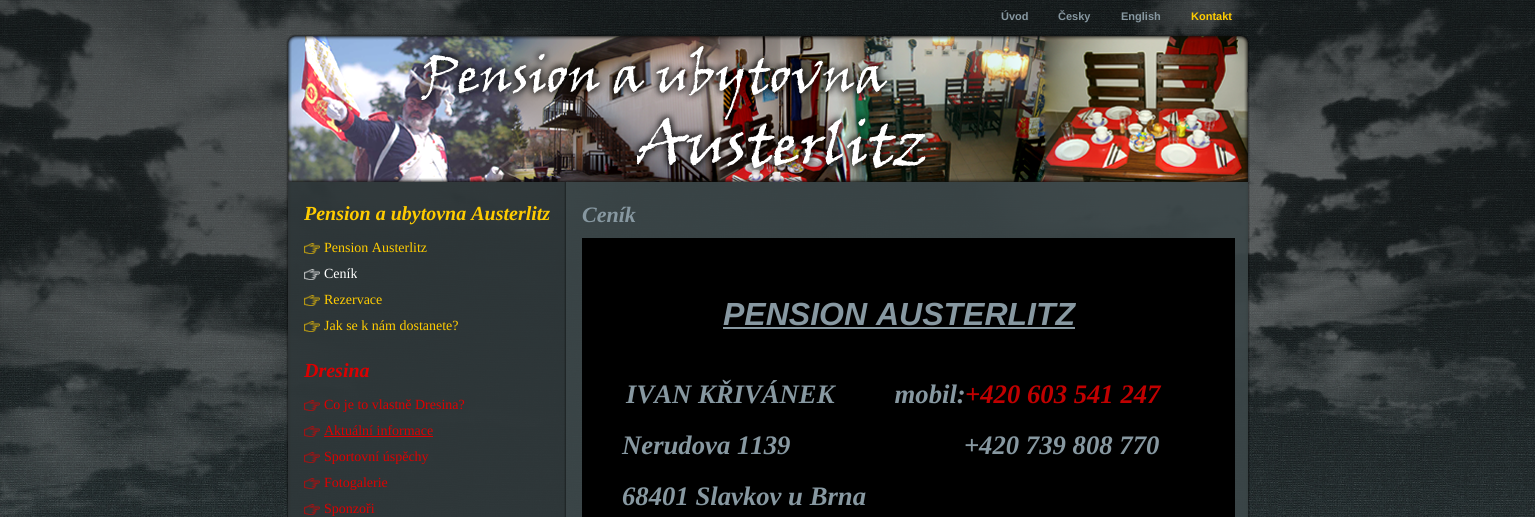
#include <cairo.h>
#include <math.h>
#include <stddef.h>

typedef struct { double x, y; const char *s; } line_t;

static void ink(cairo_t *ctx, unsigned color) {
    cairo_set_source_rgb(ctx, (color >> 16) / 255.0, (color >> 8 & 255) / 255.0, (color & 255) / 255.0);
}

static void paste(cairo_t *ctx, const char *path, double x, double y, double w, double h) {
    cairo_surface_t *image = cairo_image_surface_create_from_png(path);
    cairo_save(ctx);
    cairo_set_source_surface(ctx, image, x, y);
    cairo_rectangle(ctx, x, y, w, h);
    cairo_fill(ctx);
    cairo_restore(ctx);
    cairo_surface_destroy(image);
}

int main(void) {
    cairo_surface_t *surface = cairo_image_surface_create(CAIRO_FORMAT_RGB24, 1535, 517);
    cairo_t *ctx = cairo_create(surface);
    cairo_font_options_t *options = cairo_font_options_create();
    cairo_font_options_set_hint_metrics(options, CAIRO_HINT_METRICS_OFF);
    cairo_font_options_set_hint_style(options, CAIRO_HINT_STYLE_NONE);
    cairo_set_font_options(ctx, options);
    cairo_set_miter_limit(ctx, 4);
    ink(ctx, 0xFFFFFF);
    cairo_paint(ctx);
    paste(ctx, "media/1.png", 0, 0, 1535, 517);
    paste(ctx, "media/2.png", 0, 0, 1535, 517);
    paste(ctx, "media/3.png", 976, 0, 559, 434);
    paste(ctx, "media/4.png", 0, 0, 615, 517);
    cairo_select_font_face(ctx, "Liberation Sans", CAIRO_FONT_SLANT_NORMAL, CAIRO_FONT_WEIGHT_BOLD);
    cairo_set_font_size(ctx, 11);
    ink(ctx, 0x8798A1);
    {
        static const line_t items[] = {
            {1001, 20, "Úvod"},
            {1058, 20, "Česky"},
            {1121, 20, "English"},
        };
        for (size_t i = 0; i < sizeof items / sizeof *items; i++) {
            cairo_move_to(ctx, items[i].x, items[i].y);
            cairo_show_text(ctx, items[i].s);
        }
    }
    ink(ctx, 0xFFCC00);
    cairo_move_to(ctx, 1191, 20);
    cairo_show_text(ctx, "Kontakt");
    paste(ctx, "media/5.png", 286, 34, 964, 148);
    paste(ctx, "media/6.png", 286, 182, 964, 335);
    cairo_select_font_face(ctx, "Liberation Serif", CAIRO_FONT_SLANT_ITALIC, CAIRO_FONT_WEIGHT_BOLD);
    cairo_set_font_size(ctx, 20);
    cairo_move_to(ctx, 304, 220);
    cairo_show_text(ctx, "Pension a ubytovna Austerlitz");
    paste(ctx, "media/7.png", 304, 243, 16, 11);
    cairo_select_font_face(ctx, "Liberation Serif", CAIRO_FONT_SLANT_NORMAL, CAIRO_FONT_WEIGHT_NORMAL);
    cairo_set_font_size(ctx, 14);
    cairo_move_to(ctx, 324, 252);
    cairo_show_text(ctx, "Pension Austerlitz");
    paste(ctx, "media/8.png", 304, 269, 16, 11);
    ink(ctx, 0xFFFFFF);
    cairo_move_to(ctx, 324, 278);
    cairo_show_text(ctx, "Ceník");
    paste(ctx, "media/9.png", 304, 295, 16, 11);
    ink(ctx, 0xFFCC00);
    cairo_move_to(ctx, 324, 304);
    cairo_show_text(ctx, "Rezervace");
    paste(ctx, "media/10.png", 304, 321, 16, 11);
    cairo_move_to(ctx, 324, 330);
    cairo_show_text(ctx, "Jak se k nám dostanete?");
    cairo_select_font_face(ctx, "Liberation Serif", CAIRO_FONT_SLANT_ITALIC, CAIRO_FONT_WEIGHT_BOLD);
    cairo_set_font_size(ctx, 20);
    ink(ctx, 0xDC0000);
    cairo_move_to(ctx, 304, 377);
    cairo_show_text(ctx, "Dresina");
    paste(ctx, "media/11.png", 304, 400, 16, 11);
    cairo_select_font_face(ctx, "Liberation Serif", CAIRO_FONT_SLANT_NORMAL, CAIRO_FONT_WEIGHT_NORMAL);
    cairo_set_font_size(ctx, 14);
    cairo_move_to(ctx, 324, 409);
    cairo_show_text(ctx, "Co je to vlastně Dresina?");
    paste(ctx, "media/12.png", 304, 426, 16, 11);
    cairo_move_to(ctx, 324, 435);
    cairo_show_text(ctx, "Aktuální informace");
    cairo_rectangle(ctx, 324, 436, 109, 1);
    cairo_fill(ctx);
    paste(ctx, "media/13.png", 304, 452, 16, 11);
    cairo_move_to(ctx, 324, 461);
    cairo_show_text(ctx, "Sportovní úspěchy");
    paste(ctx, "media/14.png", 304, 478, 16, 11);
    cairo_move_to(ctx, 324, 487);
    cairo_show_text(ctx, "Fotogalerie");
    paste(ctx, "media/15.png", 304, 504, 16, 11);
    cairo_move_to(ctx, 324, 513);
    cairo_show_text(ctx, "Sponzoři");
    cairo_select_font_face(ctx, "Liberation Serif", CAIRO_FONT_SLANT_ITALIC, CAIRO_FONT_WEIGHT_BOLD);
    cairo_set_font_size(ctx, 22);
    ink(ctx, 0x8798A1);
    cairo_move_to(ctx, 582, 222);
    cairo_show_text(ctx, "Ceník");
    ink(ctx, 0x000000);
    cairo_rectangle(ctx, 582, 238, 653, 279);
    cairo_fill(ctx);
    cairo_select_font_face(ctx, "Liberation Sans", CAIRO_FONT_SLANT_ITALIC, CAIRO_FONT_WEIGHT_BOLD);
    cairo_set_font_size(ctx, 32);
    ink(ctx, 0x8798A1);
    cairo_move_to(ctx, 723, 325);
    cairo_show_text(ctx, "PENSION AUSTERLITZ");
    cairo_rectangle(ctx, 723, 327, 352, 2);
    cairo_fill(ctx);
    cairo_select_font_face(ctx, "Liberation Serif", CAIRO_FONT_SLANT_ITALIC, CAIRO_FONT_WEIGHT_BOLD);
    cairo_set_font_size(ctx, 26.7);
    cairo_move_to(ctx, 626, 403);
    cairo_show_text(ctx, "IVAN KŘIVÁNEK         mobil:");
    ink(ctx, 0xC00000);
    cairo_move_to(ctx, 965, 403);
    cairo_show_text(ctx, "+420 603 541 247");
    ink(ctx, 0x8798A1);
    cairo_move_to(ctx, 622, 454);
    cairo_show_text(ctx, "Nerudova 1139                          +420 739 808 770");
    cairo_move_to(ctx, 622, 505);
    cairo_show_text(ctx, "68401 Slavkov u Brna");
    cairo_surface_write_to_png(surface, "image.png");
    cairo_font_options_destroy(options);
    cairo_destroy(ctx);
    cairo_surface_destroy(surface);
    return 0;
}
